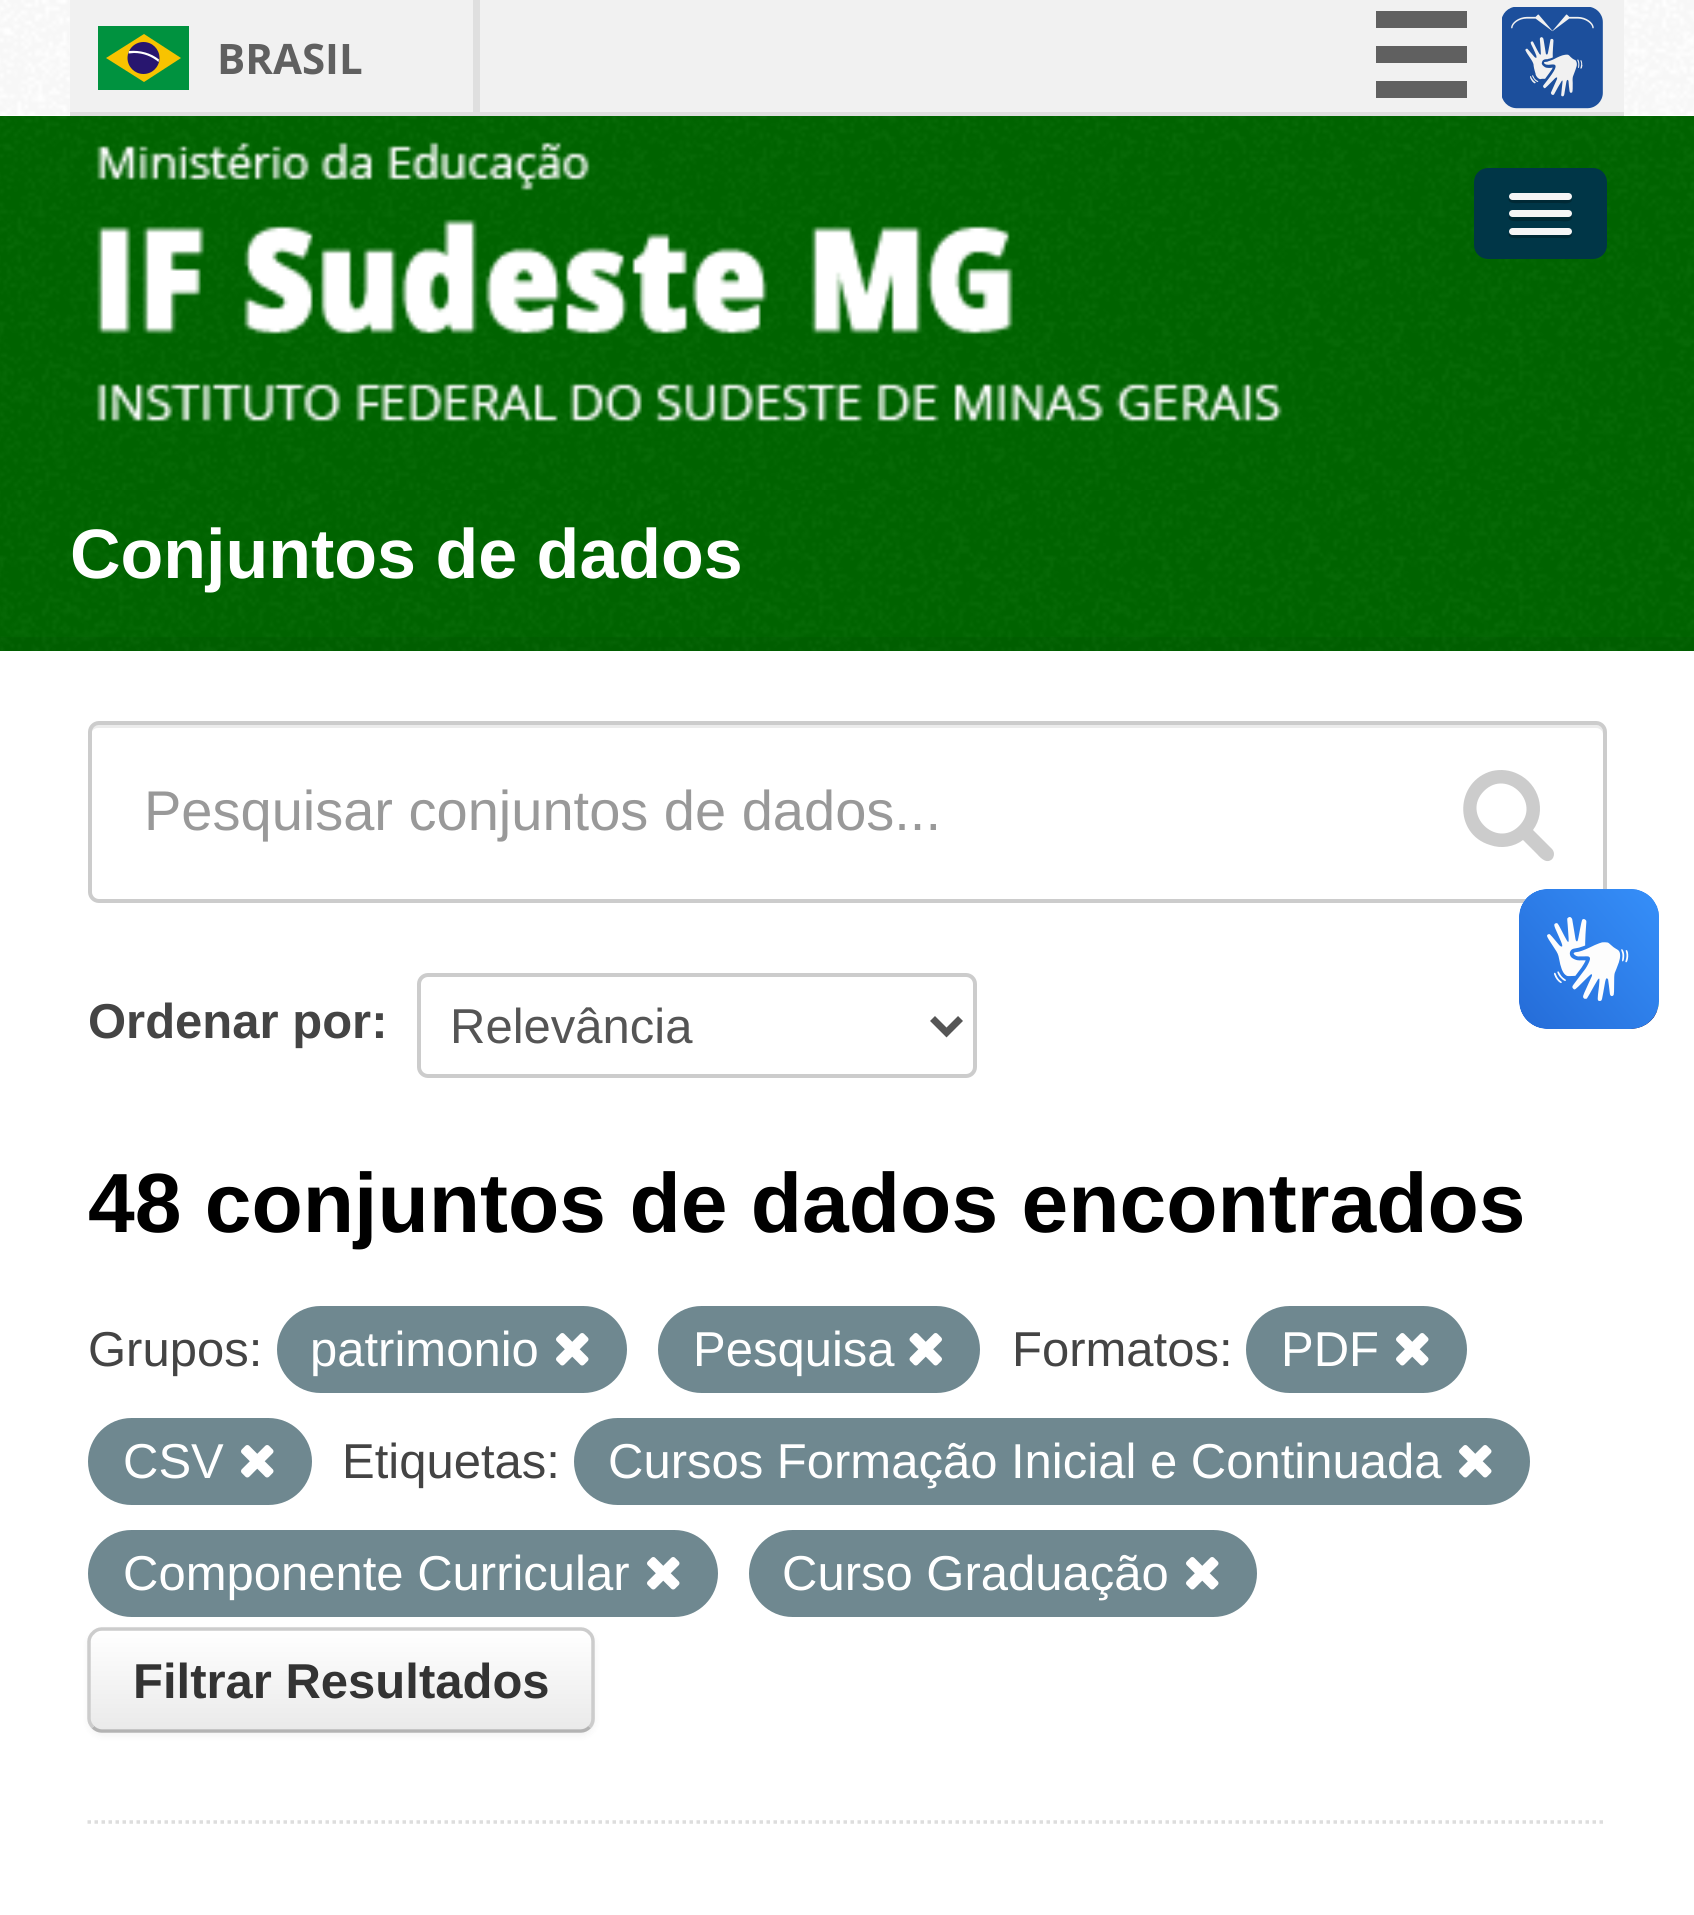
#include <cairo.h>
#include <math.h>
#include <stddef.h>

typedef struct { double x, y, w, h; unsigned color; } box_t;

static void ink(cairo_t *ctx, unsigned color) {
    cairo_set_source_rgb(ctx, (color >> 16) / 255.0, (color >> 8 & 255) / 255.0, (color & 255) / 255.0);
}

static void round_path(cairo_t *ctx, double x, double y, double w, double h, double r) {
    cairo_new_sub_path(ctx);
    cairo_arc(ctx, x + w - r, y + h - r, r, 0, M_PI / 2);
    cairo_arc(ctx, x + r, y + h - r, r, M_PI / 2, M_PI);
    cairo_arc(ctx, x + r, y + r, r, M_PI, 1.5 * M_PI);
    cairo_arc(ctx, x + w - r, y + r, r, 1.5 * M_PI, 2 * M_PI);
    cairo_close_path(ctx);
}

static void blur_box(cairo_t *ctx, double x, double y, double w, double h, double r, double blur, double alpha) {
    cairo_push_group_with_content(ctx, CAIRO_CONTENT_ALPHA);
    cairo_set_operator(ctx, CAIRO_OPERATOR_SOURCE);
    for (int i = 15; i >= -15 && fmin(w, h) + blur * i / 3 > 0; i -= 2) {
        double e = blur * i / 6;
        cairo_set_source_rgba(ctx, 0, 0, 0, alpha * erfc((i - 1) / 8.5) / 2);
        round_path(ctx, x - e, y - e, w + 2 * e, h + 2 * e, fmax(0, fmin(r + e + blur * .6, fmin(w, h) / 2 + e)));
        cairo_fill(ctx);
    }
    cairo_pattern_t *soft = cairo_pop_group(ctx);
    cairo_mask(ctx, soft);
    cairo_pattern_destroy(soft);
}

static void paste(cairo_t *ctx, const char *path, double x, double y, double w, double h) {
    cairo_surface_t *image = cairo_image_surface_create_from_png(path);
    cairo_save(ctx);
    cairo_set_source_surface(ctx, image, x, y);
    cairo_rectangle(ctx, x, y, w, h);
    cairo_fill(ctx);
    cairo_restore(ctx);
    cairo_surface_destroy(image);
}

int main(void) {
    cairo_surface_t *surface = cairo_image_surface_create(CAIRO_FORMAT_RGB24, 1694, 1915);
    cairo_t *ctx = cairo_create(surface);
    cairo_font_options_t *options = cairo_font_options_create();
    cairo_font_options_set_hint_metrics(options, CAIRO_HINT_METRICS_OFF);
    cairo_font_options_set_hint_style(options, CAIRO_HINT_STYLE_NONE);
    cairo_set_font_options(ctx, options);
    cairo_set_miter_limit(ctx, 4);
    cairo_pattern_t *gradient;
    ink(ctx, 0x006600);
    cairo_paint(ctx);
    paste(ctx, "media/1.png", 0, 490, 1694, 161);
    ink(ctx, 0xFFFFFF);
    cairo_rectangle(ctx, 0, 0, 1694, 116);
    cairo_fill(ctx);
    paste(ctx, "media/2.png", 0, 0, 1694, 115);
    {
        static const box_t items[] = {
            {70, 0, 1554, 112, 0xF1F1F1},
            {70, 112, 1554, 4, 0xDFDFDF},
            {473, 0, 7, 112, 0xDFDFDF},
            {98, 26, 91, 64, 0x00923F},
        };
        for (size_t i = 0; i < sizeof items / sizeof *items; i++) {
            ink(ctx, items[i].color);
            cairo_rectangle(ctx, items[i].x, items[i].y, items[i].w, items[i].h);
            cairo_fill(ctx);
        }
    }
    ink(ctx, 0xF8C300);
    cairo_new_path(ctx);
    cairo_move_to(ctx, 144, 34);
    cairo_line_to(ctx, 106, 58);
    cairo_line_to(ctx, 144, 82);
    cairo_line_to(ctx, 181, 58);
    cairo_close_path(ctx);
    cairo_fill(ctx);
    ink(ctx, 0x28166F);
    cairo_arc(ctx, 143.5, 58, 16, 0, 2 * M_PI);
    cairo_fill(ctx);
    ink(ctx, 0xFFFFFF);
    cairo_new_path(ctx);
    cairo_move_to(ctx, 134, 53);
    cairo_curve_to(ctx, 143.5, 53, 152, 56.5, 158.5, 62);
    cairo_line_to(ctx, 159, 59.5);
    cairo_curve_to(ctx, 151, 53, 140, 50, 129, 51);
    cairo_line_to(ctx, 128.5, 53.5);
    cairo_close_path(ctx);
    cairo_fill(ctx);
    cairo_select_font_face(ctx, "Open Sans", CAIRO_FONT_SLANT_NORMAL, CAIRO_FONT_WEIGHT_BOLD);
    cairo_set_font_size(ctx, 42);
    ink(ctx, 0x606060);
    cairo_move_to(ctx, 217, 74);
    cairo_show_text(ctx, "BRASIL");
    {
        static const box_t items[] = {
            {1376, 11, 91, 17, 0x606060},
            {1376, 46, 91, 17, 0x606060},
            {1376, 81, 91, 17, 0x606060},
        };
        for (size_t i = 0; i < sizeof items / sizeof *items; i++) {
            ink(ctx, items[i].color);
            cairo_rectangle(ctx, items[i].x, items[i].y, items[i].w, items[i].h);
            cairo_fill(ctx);
        }
    }
    paste(ctx, "media/3.png", 1502, 7, 101, 102);
    paste(ctx, "media/4.png", 0, 116, 1694, 374);
    paste(ctx, "media/5.png", 96, 142, 1187, 280);
    ink(ctx, 0x003647);
    round_path(ctx, 1474, 168, 133, 91, 14);
    cairo_fill(ctx);
    ink(ctx, 0x002935);
    cairo_new_path(ctx);
    cairo_move_to(ctx, 1509, 198);
    cairo_curve_to(ctx, 1506, 205, 1521, 203, 1522, 203);
    cairo_line_to(ctx, 1559, 203);
    cairo_curve_to(ctx, 1561, 203, 1571, 205, 1572, 200);
    cairo_line_to(ctx, 1571, 197);
    cairo_curve_to(ctx, 1571, 198, 1570, 199, 1569, 199);
    cairo_line_to(ctx, 1512, 199);
    cairo_close_path(ctx);
    cairo_fill(ctx);
    ink(ctx, 0xF5F5F5);
    round_path(ctx, 1509, 193, 63, 7, 3.5);
    cairo_fill(ctx);
    ink(ctx, 0x002935);
    cairo_new_path(ctx);
    cairo_move_to(ctx, 1509, 216);
    cairo_curve_to(ctx, 1506, 223, 1521, 221, 1522, 221);
    cairo_line_to(ctx, 1559, 221);
    cairo_curve_to(ctx, 1561, 221, 1571, 223, 1572, 218);
    cairo_curve_to(ctx, 1572, 217, 1572, 216, 1571, 215);
    cairo_curve_to(ctx, 1571, 216, 1570, 217, 1568, 217);
    cairo_line_to(ctx, 1512, 217);
    cairo_close_path(ctx);
    cairo_fill(ctx);
    ink(ctx, 0xF5F5F5);
    round_path(ctx, 1509, 210, 63, 7, 3.5);
    cairo_fill(ctx);
    ink(ctx, 0x002935);
    cairo_new_path(ctx);
    cairo_move_to(ctx, 1509, 233);
    cairo_curve_to(ctx, 1506, 240, 1521, 238, 1522, 238);
    cairo_line_to(ctx, 1559, 238);
    cairo_curve_to(ctx, 1561, 238, 1571, 240, 1572, 235);
    cairo_line_to(ctx, 1571, 232);
    cairo_curve_to(ctx, 1571, 233, 1570, 234, 1569, 234);
    cairo_line_to(ctx, 1512, 234);
    cairo_close_path(ctx);
    cairo_fill(ctx);
    ink(ctx, 0xF5F5F5);
    round_path(ctx, 1509, 228, 63, 7, 3.5);
    cairo_fill(ctx);
    cairo_select_font_face(ctx, "Liberation Sans", CAIRO_FONT_SLANT_NORMAL, CAIRO_FONT_WEIGHT_BOLD);
    cairo_set_font_size(ctx, 70);
    ink(ctx, 0xFFFFFF);
    cairo_move_to(ctx, 70, 578);
    cairo_show_text(ctx, "Conjuntos de dados");
    cairo_rectangle(ctx, -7, 644, 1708, 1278);
    cairo_set_source_rgba(ctx, 0, 0, 0, 0.05);
    cairo_set_line_width(ctx, 14);
    cairo_stroke(ctx);
    ink(ctx, 0xFFFFFF);
    cairo_rectangle(ctx, 0, 651, 1694, 1264);
    cairo_fill(ctx);
    cairo_new_path(ctx);
    cairo_move_to(ctx, 87.5, 1822);
    cairo_line_to(ctx, 1606.5, 1822);
    ink(ctx, 0xDDDDDD);
    cairo_set_line_width(ctx, 3.5);
    cairo_set_dash(ctx, (double[]){3.5, 3.5}, 2, 0);
    cairo_stroke(ctx);
    ink(ctx, 0xECECEC);
    cairo_new_path(ctx);
    cairo_move_to(ctx, 98, 728);
    cairo_line_to(ctx, 1596, 728);
    cairo_curve_to(ctx, 1600, 728, 1603, 731, 1603, 735);
    cairo_line_to(ctx, 1603, 732);
    cairo_curve_to(ctx, 1603, 728, 1600, 725, 1596, 725);
    cairo_line_to(ctx, 98, 725);
    cairo_curve_to(ctx, 94, 725, 91, 728, 91, 732);
    cairo_line_to(ctx, 91, 735);
    cairo_curve_to(ctx, 91, 731, 94, 728, 98, 728);
    cairo_close_path(ctx);
    cairo_fill(ctx);
    round_path(ctx, 90, 723, 1515, 178, 9);
    ink(ctx, 0xCCCCCC);
    cairo_set_line_width(ctx, 4);
    cairo_set_dash(ctx, NULL, 0, 0);
    cairo_stroke(ctx);
    cairo_select_font_face(ctx, "Liberation Sans", CAIRO_FONT_SLANT_NORMAL, CAIRO_FONT_WEIGHT_NORMAL);
    cairo_set_font_size(ctx, 56);
    ink(ctx, 0x999999);
    cairo_move_to(ctx, 144, 830);
    cairo_show_text(ctx, "Pesquisar conjuntos de dados...");
    ink(ctx, 0xCCCCCC);
    cairo_new_path(ctx);
    cairo_move_to(ctx, 1519, 826);
    cairo_curve_to(ctx, 1542, 803, 1507, 768, 1484, 791);
    cairo_curve_to(ctx, 1461, 814, 1496, 849, 1519, 826);
    cairo_close_path(ctx);
    cairo_move_to(ctx, 1554, 854);
    cairo_curve_to(ctx, 1554, 856, 1553, 859, 1551, 860);
    cairo_curve_to(ctx, 1545, 864, 1539, 856, 1536, 853);
    cairo_line_to(ctx, 1523, 840);
    cairo_curve_to(ctx, 1514, 847, 1501, 849, 1490, 845);
    cairo_curve_to(ctx, 1453, 834, 1455, 781, 1492, 771);
    cairo_curve_to(ctx, 1501, 769, 1510, 770, 1518, 774);
    cairo_curve_to(ctx, 1539, 784, 1547, 811, 1533, 830);
    cairo_line_to(ctx, 1552, 849);
    cairo_curve_to(ctx, 1553, 850, 1554, 852, 1554, 854);
    cairo_close_path(ctx);
    cairo_fill(ctx);
    cairo_select_font_face(ctx, "Liberation Sans", CAIRO_FONT_SLANT_NORMAL, CAIRO_FONT_WEIGHT_BOLD);
    cairo_set_font_size(ctx, 49);
    ink(ctx, 0x444444);
    cairo_move_to(ctx, 88, 1038);
    cairo_show_text(ctx, "Ordenar por:");
    round_path(ctx, 419, 975, 556, 101, 9);
    ink(ctx, 0xCCCCCC);
    cairo_stroke(ctx);
    cairo_new_path(ctx);
    cairo_move_to(ctx, 932.5, 1018.5);
    cairo_line_to(ctx, 946.5, 1032.5);
    cairo_line_to(ctx, 960.5, 1018.5);
    ink(ctx, 0x555555);
    cairo_set_line_width(ctx, 7);
    cairo_stroke(ctx);
    cairo_select_font_face(ctx, "Liberation Sans", CAIRO_FONT_SLANT_NORMAL, CAIRO_FONT_WEIGHT_NORMAL);
    cairo_move_to(ctx, 450, 1043);
    cairo_show_text(ctx, "Relevância");
    cairo_select_font_face(ctx, "Liberation Sans", CAIRO_FONT_SLANT_NORMAL, CAIRO_FONT_WEIGHT_BOLD);
    cairo_set_font_size(ctx, 84);
    ink(ctx, 0x000000);
    cairo_move_to(ctx, 88, 1232);
    cairo_show_text(ctx, "48 conjuntos de dados encontrados");
    cairo_select_font_face(ctx, "Liberation Sans", CAIRO_FONT_SLANT_NORMAL, CAIRO_FONT_WEIGHT_NORMAL);
    cairo_set_font_size(ctx, 49);
    ink(ctx, 0x444444);
    cairo_move_to(ctx, 88, 1366);
    cairo_show_text(ctx, "Grupos:");
    ink(ctx, 0x6F8890);
    round_path(ctx, 277, 1306, 350, 87, 43.5);
    cairo_fill(ctx);
    ink(ctx, 0xFFFFFF);
    cairo_move_to(ctx, 310, 1366);
    cairo_show_text(ctx, "patrimonio");
    paste(ctx, "media/6.png", 556, 1333, 33, 33);
    ink(ctx, 0x6F8890);
    round_path(ctx, 658, 1306, 322, 87, 43.5);
    cairo_fill(ctx);
    ink(ctx, 0xFFFFFF);
    cairo_move_to(ctx, 693, 1366);
    cairo_show_text(ctx, "Pesquisa");
    paste(ctx, "media/7.png", 909, 1333, 33, 33);
    ink(ctx, 0x444444);
    cairo_move_to(ctx, 1012, 1366);
    cairo_show_text(ctx, "Formatos:");
    ink(ctx, 0x6F8890);
    round_path(ctx, 1246, 1306, 221, 87, 43.5);
    cairo_fill(ctx);
    ink(ctx, 0xFFFFFF);
    cairo_move_to(ctx, 1281, 1366);
    cairo_show_text(ctx, "PDF");
    paste(ctx, "media/6.png", 1396, 1333, 33, 33);
    ink(ctx, 0x6F8890);
    round_path(ctx, 88, 1418, 224, 87, 43.5);
    cairo_fill(ctx);
    ink(ctx, 0xFFFFFF);
    cairo_move_to(ctx, 123, 1478);
    cairo_show_text(ctx, "CSV");
    paste(ctx, "media/6.png", 241, 1445, 33, 33);
    ink(ctx, 0x444444);
    cairo_move_to(ctx, 342, 1478);
    cairo_show_text(ctx, "Etiquetas:");
    ink(ctx, 0x6F8890);
    round_path(ctx, 574, 1418, 956, 87, 43.5);
    cairo_fill(ctx);
    ink(ctx, 0xFFFFFF);
    cairo_move_to(ctx, 608, 1478);
    cairo_show_text(ctx, "Cursos Formação Inicial e Continuada");
    paste(ctx, "media/6.png", 1459, 1445, 33, 33);
    ink(ctx, 0x6F8890);
    round_path(ctx, 88, 1530, 630, 87, 43.5);
    cairo_fill(ctx);
    ink(ctx, 0xFFFFFF);
    cairo_move_to(ctx, 123, 1590);
    cairo_show_text(ctx, "Componente Curricular");
    paste(ctx, "media/6.png", 647, 1557, 33, 33);
    ink(ctx, 0x6F8890);
    round_path(ctx, 749, 1530, 508, 87, 43.5);
    cairo_fill(ctx);
    ink(ctx, 0xFFFFFF);
    cairo_move_to(ctx, 782, 1590);
    cairo_show_text(ctx, "Curso Graduação");
    paste(ctx, "media/6.png", 1186, 1557, 33, 33);
    ink(ctx, 0x000000);
    blur_box(ctx, 88, 1631, 507, 105, 14, 3.5, 0.05);
    ink(ctx, 0xF7F7F7);
    round_path(ctx, 88, 1628, 507, 105, 14);
    cairo_fill(ctx);
    cairo_save(ctx);
    round_path(ctx, 88, 1628, 507, 105, 14);
    cairo_clip(ctx);
    gradient = cairo_pattern_create_linear(341, 1631, 341, 1729);
    cairo_pattern_add_color_stop_rgba(gradient, 0, 1, 1, 1, 1);
    cairo_pattern_add_color_stop_rgba(gradient, 1, 0.918, 0.918, 0.918, 1);
    cairo_set_source(ctx, gradient);
    cairo_pattern_destroy(gradient);
    cairo_rectangle(ctx, 88, 1631, 507, 98);
    cairo_fill(ctx);
    cairo_restore(ctx);
    cairo_new_path(ctx);
    cairo_move_to(ctx, 589.5, 1727);
    cairo_curve_to(ctx, 587.5, 1729.5, 584, 1731, 581, 1731);
    cairo_line_to(ctx, 101.5, 1731);
    cairo_curve_to(ctx, 98.5, 1731, 95, 1729.5, 93, 1727);
    ink(ctx, 0xB3B3B3);
    cairo_set_line_width(ctx, 3.5);
    cairo_stroke(ctx);
    cairo_new_path(ctx);
    cairo_move_to(ctx, 93, 1727);
    cairo_curve_to(ctx, 90.5, 1725, 89, 1721.5, 89, 1718.5);
    cairo_line_to(ctx, 89, 1641.5);
    cairo_curve_to(ctx, 89, 1638.5, 90.5, 1635, 93, 1633);
    cairo_curve_to(ctx, 95, 1630.5, 98.5, 1629, 101.5, 1629);
    cairo_line_to(ctx, 581, 1629);
    cairo_curve_to(ctx, 584, 1629, 587.5, 1630.5, 589.5, 1633);
    cairo_curve_to(ctx, 592, 1635, 593, 1638.5, 593, 1641.5);
    cairo_line_to(ctx, 593, 1718.5);
    cairo_curve_to(ctx, 593, 1721.5, 592, 1725, 589.5, 1727);
    ink(ctx, 0xCCCCCC);
    cairo_stroke(ctx);
    cairo_select_font_face(ctx, "Liberation Sans", CAIRO_FONT_SLANT_NORMAL, CAIRO_FONT_WEIGHT_BOLD);
    ink(ctx, 0x333333);
    cairo_move_to(ctx, 133, 1698);
    cairo_show_text(ctx, "Filtrar Resultados");
    paste(ctx, "media/8.png", 1519, 889, 140, 140);
    paste(ctx, "media/9.png", 1519, 889, 140, 140);
    cairo_surface_write_to_png(surface, "image.png");
    cairo_font_options_destroy(options);
    cairo_destroy(ctx);
    cairo_surface_destroy(surface);
    return 0;
}
